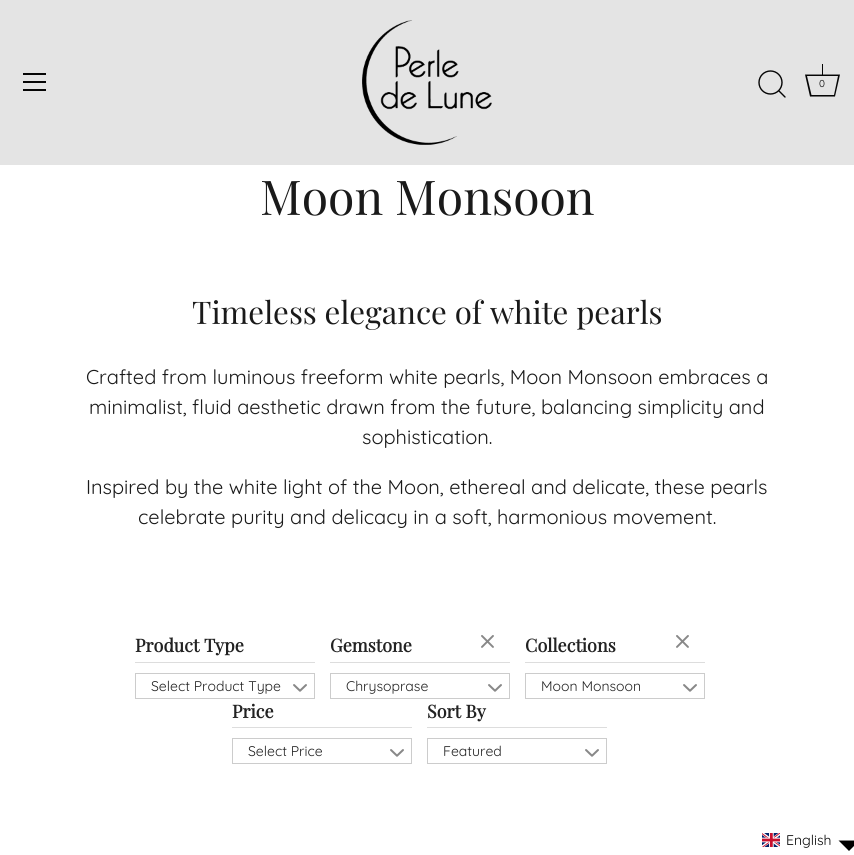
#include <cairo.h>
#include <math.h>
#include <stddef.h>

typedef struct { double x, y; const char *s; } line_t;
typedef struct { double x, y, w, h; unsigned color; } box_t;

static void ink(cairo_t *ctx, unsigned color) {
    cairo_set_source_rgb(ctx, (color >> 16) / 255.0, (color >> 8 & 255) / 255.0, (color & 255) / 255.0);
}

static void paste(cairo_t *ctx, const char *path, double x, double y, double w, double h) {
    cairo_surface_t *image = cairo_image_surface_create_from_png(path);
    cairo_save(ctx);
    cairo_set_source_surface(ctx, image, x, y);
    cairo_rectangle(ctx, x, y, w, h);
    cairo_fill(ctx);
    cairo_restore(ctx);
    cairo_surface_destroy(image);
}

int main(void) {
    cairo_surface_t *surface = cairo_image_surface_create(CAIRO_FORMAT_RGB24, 854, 855);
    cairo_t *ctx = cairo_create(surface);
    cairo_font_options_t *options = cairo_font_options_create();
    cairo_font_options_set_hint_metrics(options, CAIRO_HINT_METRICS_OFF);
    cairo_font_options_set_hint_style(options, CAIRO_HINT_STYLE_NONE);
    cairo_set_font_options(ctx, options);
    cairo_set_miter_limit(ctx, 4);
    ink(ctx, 0xFFFFFF);
    cairo_paint(ctx);
    {
        static const box_t items[] = {
            {0, 0, 854, 165, 0xE4E4E4},
            {23, 73, 23, 2, 0x050505},
            {23, 81, 23, 2, 0x050505},
            {23, 89, 23, 2, 0x050505},
        };
        for (size_t i = 0; i < sizeof items / sizeof *items; i++) {
            ink(ctx, items[i].color);
            cairo_rectangle(ctx, items[i].x, items[i].y, items[i].w, items[i].h);
            cairo_fill(ctx);
        }
    }
    paste(ctx, "media/1.png", 362, 20, 130, 125);
    cairo_arc(ctx, 770.5, 82.5, 11.5, 0, 2 * M_PI);
    cairo_set_line_width(ctx, 1.4);
    cairo_stroke(ctx);
    cairo_new_path(ctx);
    cairo_move_to(ctx, 785, 97);
    cairo_line_to(ctx, 779, 91);
    cairo_set_line_cap(ctx, CAIRO_LINE_CAP_ROUND);
    cairo_set_line_join(ctx, CAIRO_LINE_JOIN_ROUND);
    cairo_stroke(ctx);
    cairo_new_path(ctx);
    cairo_move_to(ctx, 838, 76);
    cairo_line_to(ctx, 834, 95);
    cairo_line_to(ctx, 811.5, 95);
    cairo_line_to(ctx, 807, 76);
    cairo_line_to(ctx, 838, 76);
    cairo_move_to(ctx, 840, 74.5);
    cairo_line_to(ctx, 805, 74.5);
    cairo_line_to(ctx, 810, 96.5);
    cairo_line_to(ctx, 835, 96.5);
    cairo_close_path(ctx);
    cairo_fill(ctx);
    cairo_rectangle(ctx, 822, 64, 1, 11);
    cairo_fill(ctx);
    cairo_select_font_face(ctx, "Quicksand", CAIRO_FONT_SLANT_NORMAL, CAIRO_FONT_WEIGHT_NORMAL);
    cairo_set_font_size(ctx, 10);
    cairo_move_to(ctx, 819, 87);
    cairo_show_text(ctx, "0");
    cairo_select_font_face(ctx, "Playfair Display", CAIRO_FONT_SLANT_NORMAL, CAIRO_FONT_WEIGHT_NORMAL);
    cairo_set_font_size(ctx, 48);
    ink(ctx, 0x1A1A1A);
    cairo_move_to(ctx, 260, 215);
    cairo_show_text(ctx, "Moon Monsoon");
    cairo_set_font_size(ctx, 31.25);
    cairo_move_to(ctx, 192, 324);
    cairo_show_text(ctx, "Timeless elegance of white pearls");
    cairo_select_font_face(ctx, "Quicksand", CAIRO_FONT_SLANT_NORMAL, CAIRO_FONT_WEIGHT_NORMAL);
    cairo_set_font_size(ctx, 20);
    {
        static const line_t items[] = {
            {86, 384, "Crafted from luminous freeform white pearls, Moon Monsoon embraces a"},
            {89, 414, "minimalist, fluid aesthetic drawn from the future, balancing simplicity and"},
            {362, 444, "sophistication."},
            {86, 494, "Inspired by the white light of the Moon, ethereal and delicate, these pearls"},
            {138, 524, "celebrate purity and delicacy in a soft, harmonious movement."},
        };
        for (size_t i = 0; i < sizeof items / sizeof *items; i++) {
            cairo_move_to(ctx, items[i].x, items[i].y);
            cairo_show_text(ctx, items[i].s);
        }
    }
    ink(ctx, 0xDDDDDD);
    cairo_rectangle(ctx, 135, 662, 180, 1);
    cairo_fill(ctx);
    cairo_select_font_face(ctx, "Playfair Display", CAIRO_FONT_SLANT_NORMAL, CAIRO_FONT_WEIGHT_BOLD);
    cairo_set_font_size(ctx, 18);
    ink(ctx, 0x222222);
    cairo_move_to(ctx, 135, 652);
    cairo_show_text(ctx, "Product Type");
    cairo_rectangle(ctx, 135.5, 673.5, 179, 25);
    ink(ctx, 0xCCCCCC);
    cairo_set_line_width(ctx, 1);
    cairo_set_line_cap(ctx, CAIRO_LINE_CAP_BUTT);
    cairo_set_line_join(ctx, CAIRO_LINE_JOIN_MITER);
    cairo_stroke(ctx);
    cairo_select_font_face(ctx, "Quicksand", CAIRO_FONT_SLANT_NORMAL, CAIRO_FONT_WEIGHT_NORMAL);
    cairo_set_font_size(ctx, 14);
    ink(ctx, 0x222222);
    cairo_move_to(ctx, 151, 691);
    cairo_show_text(ctx, "Select Product Type");
    paste(ctx, "media/2.png", 293, 684, 14, 8);
    ink(ctx, 0xDDDDDD);
    cairo_rectangle(ctx, 330, 662, 180, 1);
    cairo_fill(ctx);
    cairo_select_font_face(ctx, "Playfair Display", CAIRO_FONT_SLANT_NORMAL, CAIRO_FONT_WEIGHT_BOLD);
    cairo_set_font_size(ctx, 18);
    ink(ctx, 0x222222);
    cairo_move_to(ctx, 330, 652);
    cairo_show_text(ctx, "Gemstone");
    paste(ctx, "media/3.png", 481, 635, 13, 13);
    cairo_rectangle(ctx, 330.5, 673.5, 179, 25);
    ink(ctx, 0xCCCCCC);
    cairo_stroke(ctx);
    cairo_select_font_face(ctx, "Quicksand", CAIRO_FONT_SLANT_NORMAL, CAIRO_FONT_WEIGHT_NORMAL);
    cairo_set_font_size(ctx, 14);
    ink(ctx, 0x222222);
    cairo_move_to(ctx, 346, 691);
    cairo_show_text(ctx, "Chrysoprase");
    paste(ctx, "media/2.png", 488, 684, 14, 8);
    ink(ctx, 0xDDDDDD);
    cairo_rectangle(ctx, 525, 662, 180, 1);
    cairo_fill(ctx);
    cairo_select_font_face(ctx, "Playfair Display", CAIRO_FONT_SLANT_NORMAL, CAIRO_FONT_WEIGHT_BOLD);
    cairo_set_font_size(ctx, 18);
    ink(ctx, 0x222222);
    cairo_move_to(ctx, 525, 652);
    cairo_show_text(ctx, "Collections");
    paste(ctx, "media/3.png", 676, 635, 13, 13);
    cairo_rectangle(ctx, 525.5, 673.5, 179, 25);
    ink(ctx, 0xCCCCCC);
    cairo_stroke(ctx);
    cairo_select_font_face(ctx, "Quicksand", CAIRO_FONT_SLANT_NORMAL, CAIRO_FONT_WEIGHT_NORMAL);
    cairo_set_font_size(ctx, 14);
    ink(ctx, 0x222222);
    cairo_move_to(ctx, 541, 691);
    cairo_show_text(ctx, "Moon Monsoon");
    paste(ctx, "media/2.png", 683, 684, 14, 8);
    ink(ctx, 0xDDDDDD);
    cairo_rectangle(ctx, 232, 727, 180, 1);
    cairo_fill(ctx);
    cairo_select_font_face(ctx, "Playfair Display", CAIRO_FONT_SLANT_NORMAL, CAIRO_FONT_WEIGHT_BOLD);
    cairo_set_font_size(ctx, 18);
    ink(ctx, 0x222222);
    cairo_move_to(ctx, 232, 718);
    cairo_show_text(ctx, "Price");
    cairo_rectangle(ctx, 232.5, 738.5, 179, 25);
    ink(ctx, 0xCCCCCC);
    cairo_stroke(ctx);
    cairo_select_font_face(ctx, "Quicksand", CAIRO_FONT_SLANT_NORMAL, CAIRO_FONT_WEIGHT_NORMAL);
    cairo_set_font_size(ctx, 14);
    ink(ctx, 0x222222);
    cairo_move_to(ctx, 248, 756);
    cairo_show_text(ctx, "Select Price");
    paste(ctx, "media/2.png", 390, 749, 14, 8);
    ink(ctx, 0xDDDDDD);
    cairo_rectangle(ctx, 427, 727, 180, 1);
    cairo_fill(ctx);
    cairo_select_font_face(ctx, "Playfair Display", CAIRO_FONT_SLANT_NORMAL, CAIRO_FONT_WEIGHT_BOLD);
    cairo_set_font_size(ctx, 18);
    ink(ctx, 0x222222);
    cairo_move_to(ctx, 427, 718);
    cairo_show_text(ctx, "Sort By");
    cairo_rectangle(ctx, 427.5, 738.5, 179, 25);
    ink(ctx, 0xCCCCCC);
    cairo_stroke(ctx);
    cairo_select_font_face(ctx, "Quicksand", CAIRO_FONT_SLANT_NORMAL, CAIRO_FONT_WEIGHT_NORMAL);
    cairo_set_font_size(ctx, 14);
    ink(ctx, 0x222222);
    cairo_move_to(ctx, 443, 756);
    cairo_show_text(ctx, "Featured");
    paste(ctx, "media/2.png", 585, 749, 14, 8);
    paste(ctx, "media/4.png", 762, 833, 18, 14);
    ink(ctx, 0x050505);
    cairo_move_to(ctx, 786, 845);
    cairo_show_text(ctx, "English");
    ink(ctx, 0x000000);
    cairo_new_path(ctx);
    cairo_move_to(ctx, 838.5, 840.5);
    cairo_line_to(ctx, 849, 851);
    cairo_line_to(ctx, 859.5, 840.5);
    cairo_fill(ctx);
    cairo_surface_write_to_png(surface, "image.png");
    cairo_font_options_destroy(options);
    cairo_destroy(ctx);
    cairo_surface_destroy(surface);
    return 0;
}
